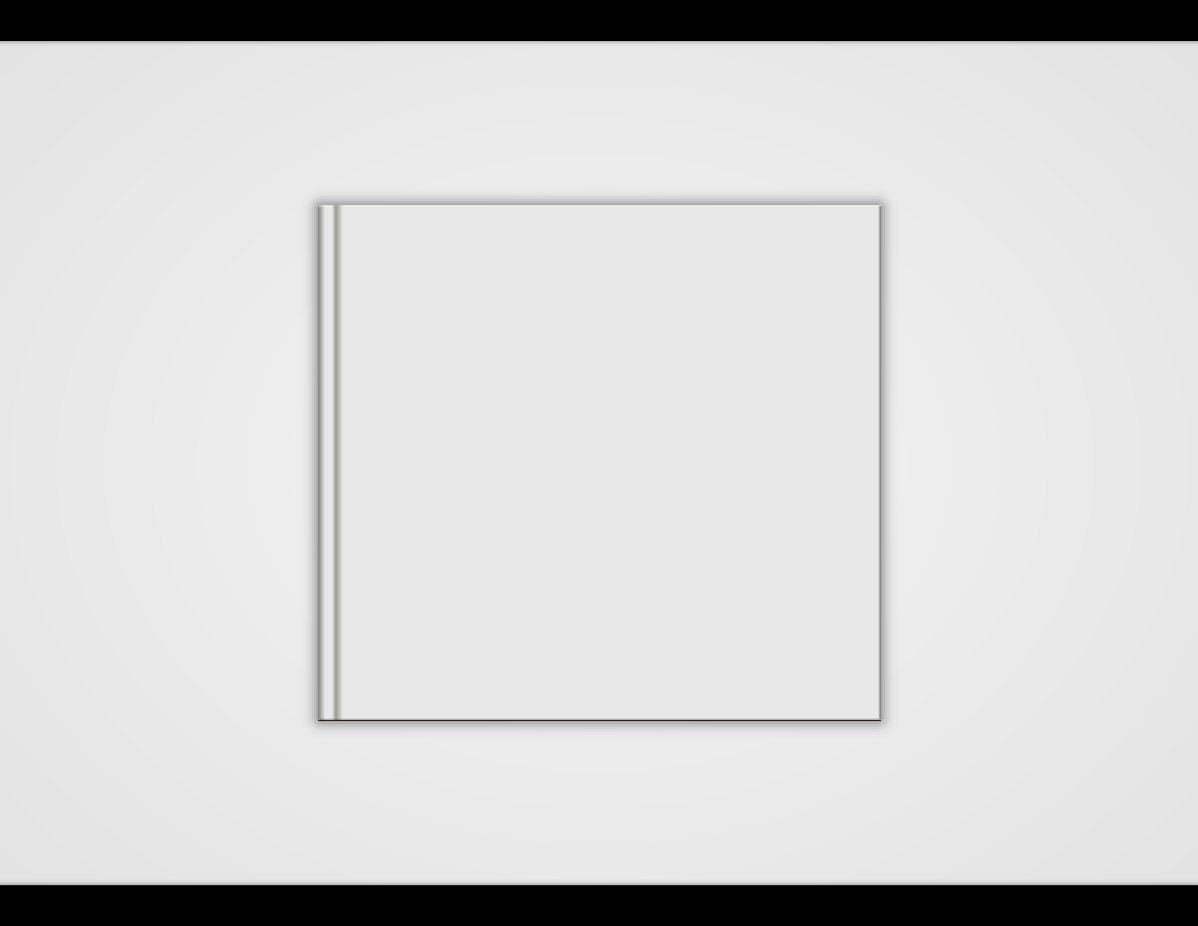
#include <cairo.h>
#include <math.h>
#include <stddef.h>


static void ink(cairo_t *ctx, unsigned color) {
    cairo_set_source_rgb(ctx, (color >> 16) / 255.0, (color >> 8 & 255) / 255.0, (color & 255) / 255.0);
}

static void round_path(cairo_t *ctx, double x, double y, double w, double h, double r) {
    cairo_new_sub_path(ctx);
    cairo_arc(ctx, x + w - r, y + h - r, r, 0, M_PI / 2);
    cairo_arc(ctx, x + r, y + h - r, r, M_PI / 2, M_PI);
    cairo_arc(ctx, x + r, y + r, r, M_PI, 1.5 * M_PI);
    cairo_arc(ctx, x + w - r, y + r, r, 1.5 * M_PI, 2 * M_PI);
    cairo_close_path(ctx);
}

static void blur_box(cairo_t *ctx, double x, double y, double w, double h, double r, double blur, double alpha) {
    cairo_push_group_with_content(ctx, CAIRO_CONTENT_ALPHA);
    cairo_set_operator(ctx, CAIRO_OPERATOR_SOURCE);
    for (int i = 15; i >= -15 && fmin(w, h) + blur * i / 3 > 0; i -= 2) {
        double e = blur * i / 6;
        cairo_set_source_rgba(ctx, 0, 0, 0, alpha * erfc((i - 1) / 8.5) / 2);
        round_path(ctx, x - e, y - e, w + 2 * e, h + 2 * e, fmax(0, fmin(r + e + blur * .6, fmin(w, h) / 2 + e)));
        cairo_fill(ctx);
    }
    cairo_pattern_t *soft = cairo_pop_group(ctx);
    cairo_mask(ctx, soft);
    cairo_pattern_destroy(soft);
}

int main(void) {
    cairo_surface_t *surface = cairo_image_surface_create(CAIRO_FORMAT_RGB24, 1198, 926);
    cairo_t *ctx = cairo_create(surface);
    cairo_font_options_t *options = cairo_font_options_create();
    cairo_font_options_set_hint_metrics(options, CAIRO_HINT_METRICS_OFF);
    cairo_font_options_set_hint_style(options, CAIRO_HINT_STYLE_NONE);
    cairo_set_font_options(ctx, options);
    cairo_set_miter_limit(ctx, 4);
    cairo_pattern_t *gradient;
    ink(ctx, 0xFFFFFF);
    cairo_paint(ctx);
    gradient = cairo_pattern_create_radial(0, 0, 0, 0, 0, 1);
    cairo_pattern_set_matrix(gradient, &(cairo_matrix_t){1.0 / 847, 0, 0, 1.0 / 655, -1.0 * 599 / 847, -1.0 * 463 / 655});
    cairo_pattern_add_color_stop_rgba(gradient, 0, 0.957, 0.957, 0.957, 1);
    cairo_pattern_add_color_stop_rgba(gradient, 1, 0.886, 0.886, 0.886, 1);
    cairo_set_source(ctx, gradient);
    cairo_pattern_destroy(gradient);
    cairo_rectangle(ctx, 0, 41, 1198, 844);
    cairo_fill(ctx);
    ink(ctx, 0x280000);
    blur_box(ctx, 0, 0, 1198, 41, 0, 2.5, 0.5);
    ink(ctx, 0x000000);
    cairo_rectangle(ctx, 0, 0, 1198, 41);
    cairo_fill(ctx);
    ink(ctx, 0x282828);
    blur_box(ctx, 318, 205, 563, 516, 0, 7.5, 0.7);
    ink(ctx, 0x572F0D);
    cairo_rectangle(ctx, 318, 720, 563, 1);
    cairo_fill(ctx);
    ink(ctx, 0xE8E8E8);
    cairo_rectangle(ctx, 318, 205, 563, 515);
    cairo_fill(ctx);
    gradient = cairo_pattern_create_linear(318, 463, 325, 463);
    cairo_pattern_add_color_stop_rgba(gradient, 0, 0.078, 0.078, 0.078, 0.5);
    cairo_pattern_add_color_stop_rgba(gradient, 1, 0.078, 0.078, 0.078, 0);
    cairo_set_source(ctx, gradient);
    cairo_pattern_destroy(gradient);
    cairo_rectangle(ctx, 318, 205, 7, 516);
    cairo_fill(ctx);
    gradient = cairo_pattern_create_linear(599, 205, 599, 208);
    cairo_pattern_add_color_stop_rgba(gradient, 0, 0.941, 0.941, 0.784, 0.6);
    cairo_pattern_add_color_stop_rgba(gradient, 1, 0.941, 0.941, 0.784, 0);
    cairo_set_source(ctx, gradient);
    cairo_pattern_destroy(gradient);
    cairo_rectangle(ctx, 318, 205, 563, 3);
    cairo_fill(ctx);
    gradient = cairo_pattern_create_linear(600, 721, 600, 718);
    cairo_pattern_add_color_stop_rgba(gradient, 0, 0, 0, 0, 0.5);
    cairo_pattern_add_color_stop_rgba(gradient, 1, 0, 0, 0, 0);
    cairo_set_source(ctx, gradient);
    cairo_pattern_destroy(gradient);
    cairo_rectangle(ctx, 320, 718, 561, 3);
    cairo_fill(ctx);
    gradient = cairo_pattern_create_linear(332, 463, 343, 463);
    cairo_pattern_add_color_stop_rgba(gradient, 0, 0.157, 0.157, 0.078, 0);
    cairo_pattern_add_color_stop_rgba(gradient, 0.35, 0.157, 0.157, 0.078, 0.4);
    cairo_pattern_add_color_stop_rgba(gradient, 1, 0.157, 0.157, 0.078, 0);
    cairo_set_source(ctx, gradient);
    cairo_pattern_destroy(gradient);
    cairo_rectangle(ctx, 332, 205, 11, 516);
    cairo_fill(ctx);
    gradient = cairo_pattern_create_linear(881, 463, 878, 463);
    cairo_pattern_add_color_stop_rgba(gradient, 0, 0, 0, 0, 0.5);
    cairo_pattern_add_color_stop_rgba(gradient, 1, 0, 0, 0, 0);
    cairo_set_source(ctx, gradient);
    cairo_pattern_destroy(gradient);
    cairo_rectangle(ctx, 878, 206, 3, 513);
    cairo_fill(ctx);
    ink(ctx, 0x280000);
    blur_box(ctx, 0, 885, 1198, 41, 0, 2.5, 0.5);
    ink(ctx, 0x000000);
    cairo_rectangle(ctx, 0, 886, 1198, 40);
    cairo_fill(ctx);
    ink(ctx, 0x1E1E1E);
    cairo_rectangle(ctx, 0, 885, 1198, 1);
    cairo_fill(ctx);
    cairo_surface_write_to_png(surface, "image.png");
    cairo_font_options_destroy(options);
    cairo_destroy(ctx);
    cairo_surface_destroy(surface);
    return 0;
}
